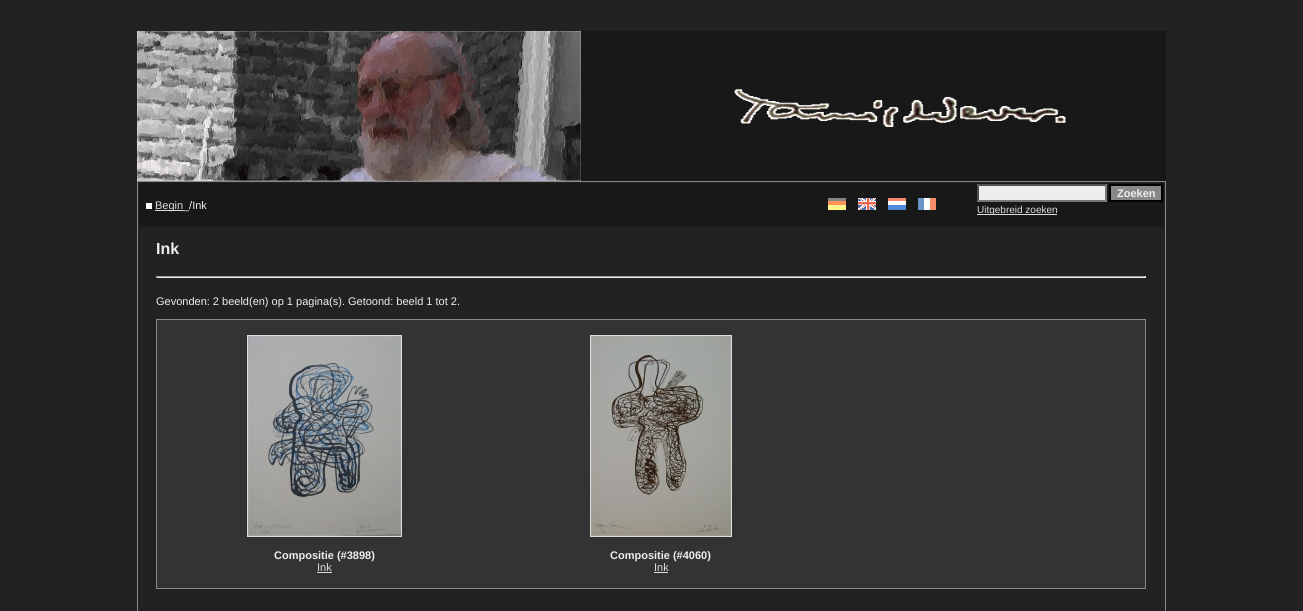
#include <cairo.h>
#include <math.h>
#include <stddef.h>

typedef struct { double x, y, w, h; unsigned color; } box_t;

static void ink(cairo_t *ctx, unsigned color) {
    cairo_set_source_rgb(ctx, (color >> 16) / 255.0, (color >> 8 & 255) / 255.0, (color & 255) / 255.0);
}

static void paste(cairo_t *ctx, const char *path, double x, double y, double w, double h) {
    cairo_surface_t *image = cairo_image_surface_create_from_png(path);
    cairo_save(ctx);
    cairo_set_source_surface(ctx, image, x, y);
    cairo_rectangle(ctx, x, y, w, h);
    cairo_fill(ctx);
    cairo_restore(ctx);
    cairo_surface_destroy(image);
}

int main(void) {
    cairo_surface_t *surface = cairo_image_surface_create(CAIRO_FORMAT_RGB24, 1303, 611);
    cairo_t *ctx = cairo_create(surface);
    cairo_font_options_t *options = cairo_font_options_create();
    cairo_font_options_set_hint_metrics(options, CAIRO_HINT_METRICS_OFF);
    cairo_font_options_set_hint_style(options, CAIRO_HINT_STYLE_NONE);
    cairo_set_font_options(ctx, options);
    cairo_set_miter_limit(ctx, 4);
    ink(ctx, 0x222222);
    cairo_paint(ctx);
    ink(ctx, 0x181818);
    cairo_rectangle(ctx, 581, 31, 585, 150);
    cairo_fill(ctx);
    paste(ctx, "media/1.png", 137, 31, 444, 150);
    paste(ctx, "media/2.png", 734, 89, 332, 38);
    {
        static const box_t items[] = {
            {137, 181, 1029, 430, 0x888888},
            {138, 182, 1027, 429, 0x222222},
            {139, 183, 1025, 44, 0x181818},
            {146, 203, 6, 6, 0xFFFFFF},
            {155, 210, 28, 1, 0xDDDDDD},
        };
        for (size_t i = 0; i < sizeof items / sizeof *items; i++) {
            ink(ctx, items[i].color);
            cairo_rectangle(ctx, items[i].x, items[i].y, items[i].w, items[i].h);
            cairo_fill(ctx);
        }
    }
    cairo_select_font_face(ctx, "Liberation Sans", CAIRO_FONT_SLANT_NORMAL, CAIRO_FONT_WEIGHT_NORMAL);
    cairo_set_font_size(ctx, 11);
    cairo_move_to(ctx, 155, 209);
    cairo_show_text(ctx, "Begin");
    ink(ctx, 0xEEEEEE);
    cairo_move_to(ctx, 183, 209);
    cairo_show_text(ctx, "_/Ink");
    paste(ctx, "media/3.png", 828, 198, 18, 12);
    paste(ctx, "media/4.png", 858, 198, 18, 12);
    paste(ctx, "media/5.png", 888, 198, 18, 12);
    paste(ctx, "media/6.png", 918, 198, 18, 12);
    cairo_rectangle(ctx, 977, 184, 130, 18);
    cairo_fill(ctx);
    ink(ctx, 0x4F4F4F);
    cairo_new_path(ctx);
    cairo_move_to(ctx, 977, 184);
    cairo_line_to(ctx, 1107, 184);
    cairo_line_to(ctx, 1105, 186);
    cairo_line_to(ctx, 979, 186);
    cairo_close_path(ctx);
    cairo_fill(ctx);
    ink(ctx, 0x767676);
    cairo_new_path(ctx);
    cairo_move_to(ctx, 1107, 184);
    cairo_line_to(ctx, 1107, 202);
    cairo_line_to(ctx, 1105, 200);
    cairo_line_to(ctx, 1105, 186);
    cairo_close_path(ctx);
    cairo_fill(ctx);
    cairo_new_path(ctx);
    cairo_move_to(ctx, 1107, 202);
    cairo_line_to(ctx, 977, 202);
    cairo_line_to(ctx, 979, 200);
    cairo_line_to(ctx, 1105, 200);
    cairo_close_path(ctx);
    cairo_fill(ctx);
    ink(ctx, 0x4F4F4F);
    cairo_new_path(ctx);
    cairo_move_to(ctx, 977, 202);
    cairo_line_to(ctx, 977, 184);
    cairo_line_to(ctx, 979, 186);
    cairo_line_to(ctx, 979, 200);
    cairo_close_path(ctx);
    cairo_fill(ctx);
    ink(ctx, 0x888888);
    cairo_rectangle(ctx, 1110, 185, 52, 16);
    cairo_fill_preserve(ctx);
    ink(ctx, 0x000000);
    cairo_stroke(ctx);
    cairo_select_font_face(ctx, "Liberation Sans", CAIRO_FONT_SLANT_NORMAL, CAIRO_FONT_WEIGHT_BOLD);
    ink(ctx, 0xEEEEEE);
    cairo_move_to(ctx, 1117, 197);
    cairo_show_text(ctx, "Zoeken");
    ink(ctx, 0xDDDDDD);
    cairo_rectangle(ctx, 977, 214, 80, 1);
    cairo_fill(ctx);
    cairo_select_font_face(ctx, "Liberation Sans", CAIRO_FONT_SLANT_NORMAL, CAIRO_FONT_WEIGHT_NORMAL);
    cairo_set_font_size(ctx, 10);
    cairo_move_to(ctx, 977, 213);
    cairo_show_text(ctx, "Uitgebreid zoeken");
    cairo_select_font_face(ctx, "Liberation Sans", CAIRO_FONT_SLANT_NORMAL, CAIRO_FONT_WEIGHT_BOLD);
    cairo_set_font_size(ctx, 16);
    ink(ctx, 0xEEEEEE);
    cairo_move_to(ctx, 156, 254);
    cairo_show_text(ctx, "Ink");
    {
        static const box_t items[] = {
            {156, 277, 990, 1, 0xEEEEEE},
            {156, 276, 990, 1, 0x9F9F9F},
            {1145, 276, 1, 2, 0xEEEEEE},
            {156, 276, 1, 2, 0x9F9F9F},
        };
        for (size_t i = 0; i < sizeof items / sizeof *items; i++) {
            ink(ctx, items[i].color);
            cairo_rectangle(ctx, items[i].x, items[i].y, items[i].w, items[i].h);
            cairo_fill(ctx);
        }
    }
    cairo_select_font_face(ctx, "Liberation Sans", CAIRO_FONT_SLANT_NORMAL, CAIRO_FONT_WEIGHT_NORMAL);
    cairo_set_font_size(ctx, 11);
    ink(ctx, 0xEEEEEE);
    cairo_move_to(ctx, 156, 305);
    cairo_show_text(ctx, "Gevonden: 2 beeld(en) op 1 pagina(s). Getoond: beeld 1 tot 2.");
    ink(ctx, 0x888888);
    cairo_rectangle(ctx, 156, 319, 990, 270);
    cairo_fill(ctx);
    ink(ctx, 0x333333);
    cairo_rectangle(ctx, 157, 320, 988, 268);
    cairo_fill(ctx);
    cairo_rectangle(ctx, 247.5, 335.5, 154, 201);
    ink(ctx, 0xDDDDDD);
    cairo_set_line_width(ctx, 1);
    cairo_stroke(ctx);
    paste(ctx, "media/7.png", 248, 336, 153, 200);
    cairo_select_font_face(ctx, "Liberation Sans", CAIRO_FONT_SLANT_NORMAL, CAIRO_FONT_WEIGHT_BOLD);
    ink(ctx, 0xEEEEEE);
    cairo_move_to(ctx, 274, 559);
    cairo_show_text(ctx, "Compositie (#3898)");
    cairo_select_font_face(ctx, "Liberation Sans", CAIRO_FONT_SLANT_NORMAL, CAIRO_FONT_WEIGHT_NORMAL);
    ink(ctx, 0xDDDDDD);
    cairo_move_to(ctx, 317, 571);
    cairo_show_text(ctx, "Ink");
    cairo_rectangle(ctx, 317, 572, 15, 1);
    cairo_fill(ctx);
    cairo_rectangle(ctx, 590.5, 335.5, 141, 201);
    cairo_stroke(ctx);
    paste(ctx, "media/8.png", 591, 336, 140, 200);
    cairo_select_font_face(ctx, "Liberation Sans", CAIRO_FONT_SLANT_NORMAL, CAIRO_FONT_WEIGHT_BOLD);
    ink(ctx, 0xEEEEEE);
    cairo_move_to(ctx, 610, 559);
    cairo_show_text(ctx, "Compositie (#4060)");
    cairo_select_font_face(ctx, "Liberation Sans", CAIRO_FONT_SLANT_NORMAL, CAIRO_FONT_WEIGHT_NORMAL);
    ink(ctx, 0xDDDDDD);
    cairo_move_to(ctx, 654, 571);
    cairo_show_text(ctx, "Ink");
    cairo_rectangle(ctx, 654, 572, 14, 1);
    cairo_fill(ctx);
    cairo_surface_write_to_png(surface, "image.png");
    cairo_font_options_destroy(options);
    cairo_destroy(ctx);
    cairo_surface_destroy(surface);
    return 0;
}
